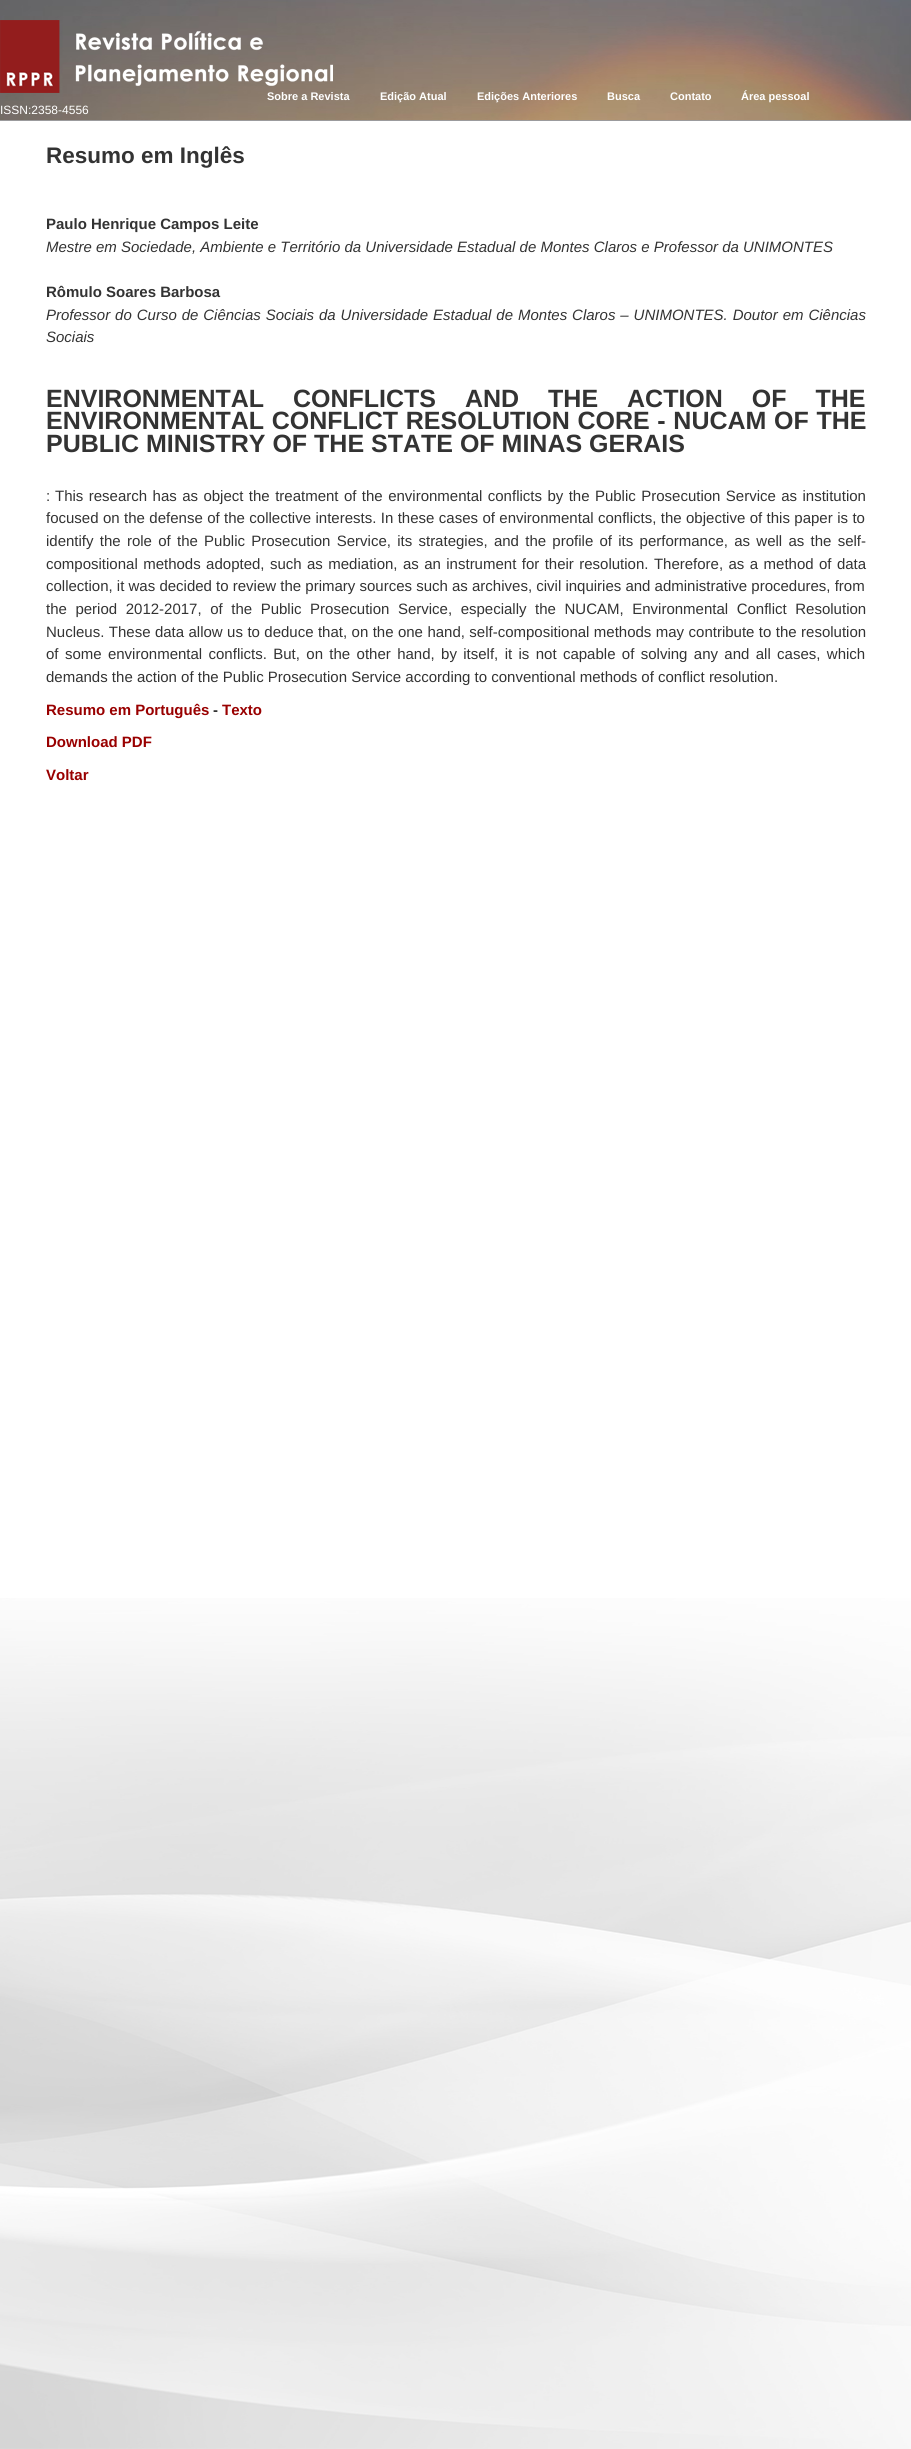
#include <cairo.h>
#include <math.h>
#include <stddef.h>

typedef struct { double x, y; const char *s; } line_t;

static void ink(cairo_t *ctx, unsigned color) {
    cairo_set_source_rgb(ctx, (color >> 16) / 255.0, (color >> 8 & 255) / 255.0, (color & 255) / 255.0);
}

static void write_spaced(cairo_t *ctx, double x, double y, const char *s, double letter, double word) {
    cairo_move_to(ctx, x, y);
    while (*s) {
        char ch[5] = {0};
        int n = 0;
        do ch[n++] = *s++; while ((*s & 0xC0) == 0x80);
        cairo_show_text(ctx, ch);
        cairo_rel_move_to(ctx, letter + word * (*ch == ' '), 0);
    }
}

static void paste(cairo_t *ctx, const char *path, double x, double y, double w, double h) {
    cairo_surface_t *image = cairo_image_surface_create_from_png(path);
    cairo_save(ctx);
    cairo_set_source_surface(ctx, image, x, y);
    cairo_rectangle(ctx, x, y, w, h);
    cairo_fill(ctx);
    cairo_restore(ctx);
    cairo_surface_destroy(image);
}

int main(void) {
    cairo_surface_t *surface = cairo_image_surface_create(CAIRO_FORMAT_RGB24, 911, 2449);
    cairo_t *ctx = cairo_create(surface);
    cairo_font_options_t *options = cairo_font_options_create();
    cairo_font_options_set_hint_metrics(options, CAIRO_HINT_METRICS_OFF);
    cairo_font_options_set_hint_style(options, CAIRO_HINT_STYLE_NONE);
    cairo_set_font_options(ctx, options);
    cairo_set_miter_limit(ctx, 4);
    ink(ctx, 0xFFFFFF);
    cairo_paint(ctx);
    paste(ctx, "media/1.png", 0, 1598, 911, 851);
    paste(ctx, "media/2.png", 0, 0, 911, 120);
    ink(ctx, 0x9B9B9D);
    cairo_rectangle(ctx, 0, 120, 911, 1);
    cairo_fill(ctx);
    paste(ctx, "media/3.png", 0, 20, 333, 73);
    cairo_select_font_face(ctx, "Liberation Sans", CAIRO_FONT_SLANT_NORMAL, CAIRO_FONT_WEIGHT_BOLD);
    cairo_set_font_size(ctx, 11);
    ink(ctx, 0xFFFFFF);
    {
        static const line_t items[] = {
            {267, 100, "Sobre a Revista"},
            {380, 100, "Edição Atual"},
            {477, 100, "Edições Anteriores"},
            {607, 100, "Busca"},
            {670, 100, "Contato"},
            {741, 100, "Área pessoal"},
        };
        for (size_t i = 0; i < sizeof items / sizeof *items; i++) {
            cairo_move_to(ctx, items[i].x, items[i].y);
            cairo_show_text(ctx, items[i].s);
        }
    }
    cairo_select_font_face(ctx, "Liberation Sans", CAIRO_FONT_SLANT_NORMAL, CAIRO_FONT_WEIGHT_NORMAL);
    cairo_set_font_size(ctx, 12);
    cairo_move_to(ctx, 0, 114);
    cairo_show_text(ctx, "ISSN:2358-4556");
    cairo_select_font_face(ctx, "Liberation Sans", CAIRO_FONT_SLANT_NORMAL, CAIRO_FONT_WEIGHT_BOLD);
    cairo_set_font_size(ctx, 22.5);
    ink(ctx, 0x333333);
    cairo_move_to(ctx, 46, 163);
    cairo_show_text(ctx, "Resumo em Inglês");
    cairo_set_font_size(ctx, 15);
    cairo_move_to(ctx, 46, 229);
    cairo_show_text(ctx, "Paulo Henrique Campos Leite");
    cairo_select_font_face(ctx, "Liberation Sans", CAIRO_FONT_SLANT_ITALIC, CAIRO_FONT_WEIGHT_NORMAL);
    cairo_move_to(ctx, 46, 252);
    cairo_show_text(ctx, "Mestre em Sociedade, Ambiente e Território da Universidade Estadual de Montes Claros e Professor da UNIMONTES");
    cairo_select_font_face(ctx, "Liberation Sans", CAIRO_FONT_SLANT_NORMAL, CAIRO_FONT_WEIGHT_BOLD);
    cairo_move_to(ctx, 46, 297);
    cairo_show_text(ctx, "Rômulo Soares Barbosa");
    cairo_select_font_face(ctx, "Liberation Sans", CAIRO_FONT_SLANT_ITALIC, CAIRO_FONT_WEIGHT_NORMAL);
    write_spaced(ctx, 46, 320, "Professor do Curso de Ciências Sociais da Universidade Estadual de Montes Claros – UNIMONTES. Doutor em Ciências", 0, 0.75);
    cairo_move_to(ctx, 46, 342);
    cairo_show_text(ctx, "Sociais");
    cairo_select_font_face(ctx, "Liberation Sans", CAIRO_FONT_SLANT_NORMAL, CAIRO_FONT_WEIGHT_BOLD);
    cairo_set_font_size(ctx, 25);
    write_spaced(ctx, 46, 407, "ENVIRONMENTAL CONFLICTS AND THE ACTION OF THE", 0, 22);
    write_spaced(ctx, 46, 429, "ENVIRONMENTAL CONFLICT RESOLUTION CORE - NUCAM OF THE", 0, 0.75);
    cairo_move_to(ctx, 46, 452);
    cairo_show_text(ctx, "PUBLIC MINISTRY OF THE STATE OF MINAS GERAIS");
    cairo_select_font_face(ctx, "Liberation Sans", CAIRO_FONT_SLANT_NORMAL, CAIRO_FONT_WEIGHT_NORMAL);
    cairo_set_font_size(ctx, 15);
    cairo_move_to(ctx, 46, 501);
    cairo_show_text(ctx, ":");
    write_spaced(ctx, 55, 501, "This research has as object the treatment of the environmental conflicts by the Public Prosecution Service as institution", 0, 1.25);
    write_spaced(ctx, 46, 523, "focused on the defense of the collective interests. In these cases of environmental conflicts, the objective of this paper is to", 0, 0.25);
    write_spaced(ctx, 46, 546, "identify the role of the Public Prosecution Service, its strategies, and the profile of its performance, as well as the self-", 0, 2.1);
    write_spaced(ctx, 46, 569, "compositional methods adopted, such as mediation, as an instrument for their resolution. Therefore, as a method of data", 0, 1.25);
    cairo_move_to(ctx, 46, 591);
    cairo_show_text(ctx, "collection, it was decided to review the primary sources such as archives, civil inquiries and administrative procedures, from");
    write_spaced(ctx, 46, 614, "the period 2012-2017, of the Public Prosecution Service, especially the NUCAM, Environmental Conflict Resolution", 0, 4.4);
    write_spaced(ctx, 46, 637, "Nucleus. These data allow us to deduce that, on the one hand, self-compositional methods may contribute to the resolution", 0, 0.25);
    write_spaced(ctx, 46, 659, "of some environmental conflicts. But, on the other hand, by itself, it is not capable of solving any and all cases, which", 0, 2.2);
    cairo_move_to(ctx, 46, 682);
    cairo_show_text(ctx, "demands the action of the Public Prosecution Service according to conventional methods of conflict resolution.");
    cairo_select_font_face(ctx, "Liberation Sans", CAIRO_FONT_SLANT_NORMAL, CAIRO_FONT_WEIGHT_BOLD);
    ink(ctx, 0x990000);
    cairo_move_to(ctx, 46, 715);
    cairo_show_text(ctx, "Resumo em Português");
    ink(ctx, 0x333333);
    cairo_move_to(ctx, 213, 715);
    cairo_show_text(ctx, "-");
    ink(ctx, 0x990000);
    {
        static const line_t items[] = {
            {222, 715, "Texto"},
            {46, 747, "Download PDF"},
            {46, 780, "Voltar"},
        };
        for (size_t i = 0; i < sizeof items / sizeof *items; i++) {
            cairo_move_to(ctx, items[i].x, items[i].y);
            cairo_show_text(ctx, items[i].s);
        }
    }
    cairo_surface_write_to_png(surface, "image.png");
    cairo_font_options_destroy(options);
    cairo_destroy(ctx);
    cairo_surface_destroy(surface);
    return 0;
}
